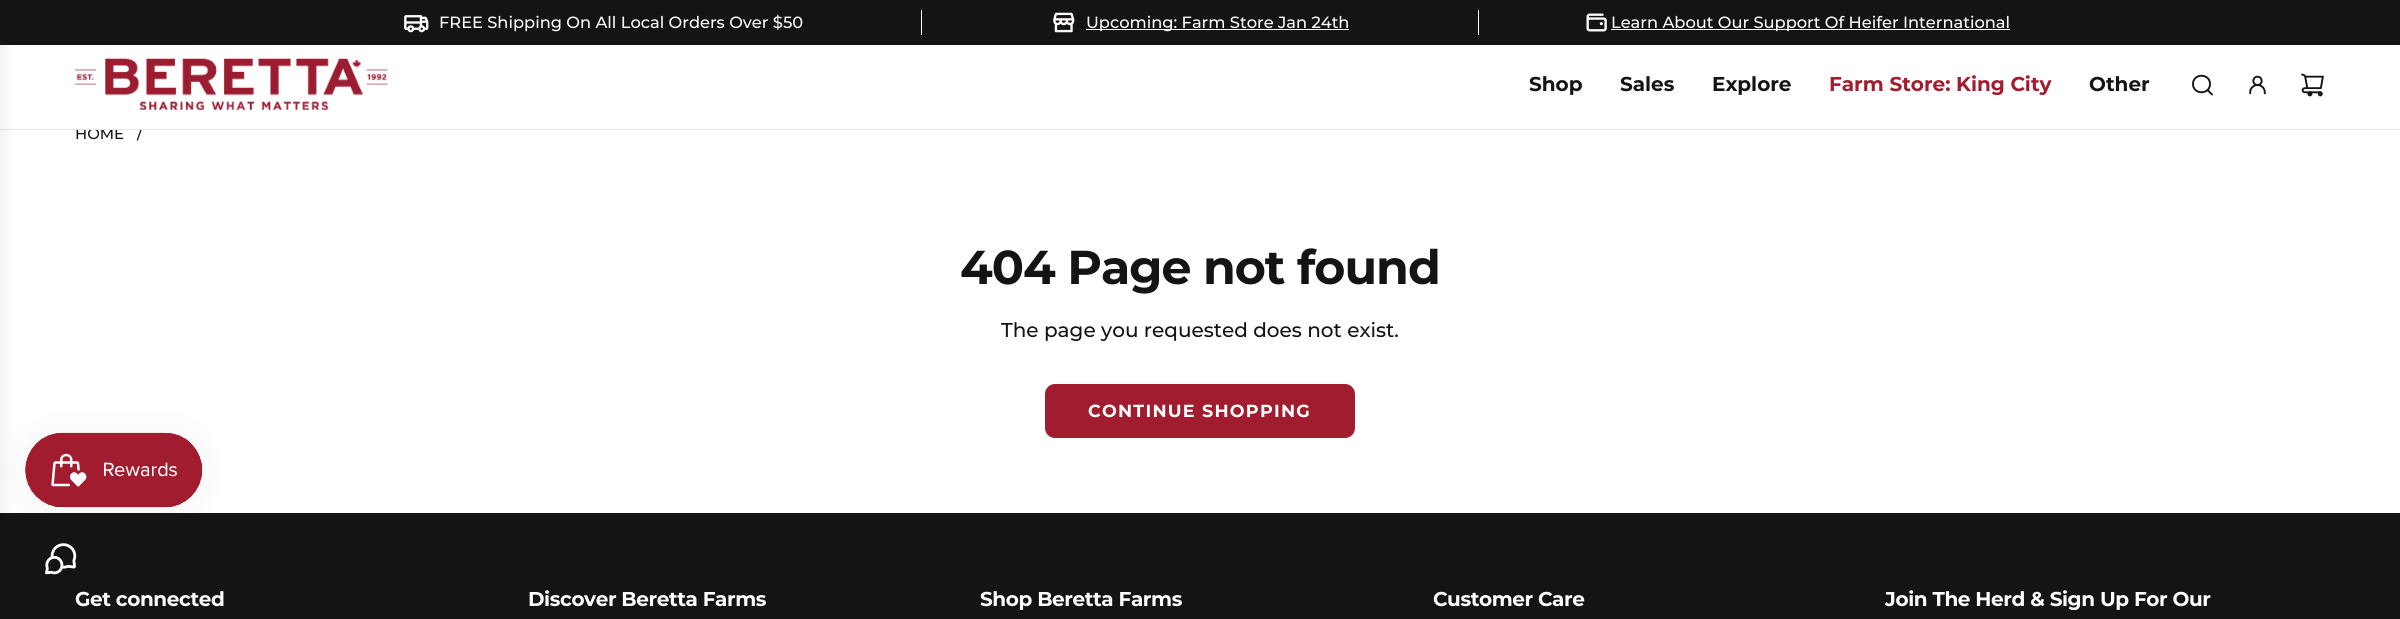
#include <cairo.h>
#include <math.h>
#include <stddef.h>

typedef struct { double x, y; const char *s; } line_t;

static void ink(cairo_t *ctx, unsigned color) {
    cairo_set_source_rgb(ctx, (color >> 16) / 255.0, (color >> 8 & 255) / 255.0, (color & 255) / 255.0);
}

static void write_spaced(cairo_t *ctx, double x, double y, const char *s, double letter, double word) {
    cairo_move_to(ctx, x, y);
    while (*s) {
        char ch[5] = {0};
        int n = 0;
        do ch[n++] = *s++; while ((*s & 0xC0) == 0x80);
        cairo_show_text(ctx, ch);
        cairo_rel_move_to(ctx, letter + word * (*ch == ' '), 0);
    }
}

static void round_path(cairo_t *ctx, double x, double y, double w, double h, double r) {
    cairo_new_sub_path(ctx);
    cairo_arc(ctx, x + w - r, y + h - r, r, 0, M_PI / 2);
    cairo_arc(ctx, x + r, y + h - r, r, M_PI / 2, M_PI);
    cairo_arc(ctx, x + r, y + r, r, M_PI, 1.5 * M_PI);
    cairo_arc(ctx, x + w - r, y + r, r, 1.5 * M_PI, 2 * M_PI);
    cairo_close_path(ctx);
}

static void blur_box(cairo_t *ctx, double x, double y, double w, double h, double r, double blur, double alpha) {
    cairo_push_group_with_content(ctx, CAIRO_CONTENT_ALPHA);
    cairo_set_operator(ctx, CAIRO_OPERATOR_SOURCE);
    for (int i = 15; i >= -15 && fmin(w, h) + blur * i / 3 > 0; i -= 2) {
        double e = blur * i / 6;
        cairo_set_source_rgba(ctx, 0, 0, 0, alpha * erfc((i - 1) / 8.5) / 2);
        round_path(ctx, x - e, y - e, w + 2 * e, h + 2 * e, fmax(0, fmin(r + e + blur * .6, fmin(w, h) / 2 + e)));
        cairo_fill(ctx);
    }
    cairo_pattern_t *soft = cairo_pop_group(ctx);
    cairo_mask(ctx, soft);
    cairo_pattern_destroy(soft);
}

static void paste(cairo_t *ctx, const char *path, double x, double y, double w, double h) {
    cairo_surface_t *image = cairo_image_surface_create_from_png(path);
    cairo_save(ctx);
    cairo_set_source_surface(ctx, image, x, y);
    cairo_rectangle(ctx, x, y, w, h);
    cairo_fill(ctx);
    cairo_restore(ctx);
    cairo_surface_destroy(image);
}

int main(void) {
    cairo_surface_t *surface = cairo_image_surface_create(CAIRO_FORMAT_RGB24, 2400, 619);
    cairo_t *ctx = cairo_create(surface);
    cairo_font_options_t *options = cairo_font_options_create();
    cairo_font_options_set_hint_metrics(options, CAIRO_HINT_METRICS_OFF);
    cairo_font_options_set_hint_style(options, CAIRO_HINT_STYLE_NONE);
    cairo_set_font_options(ctx, options);
    cairo_set_miter_limit(ctx, 4);
    ink(ctx, 0xFFFFFF);
    cairo_paint(ctx);
    cairo_select_font_face(ctx, "Montserrat Medium", CAIRO_FONT_SLANT_NORMAL, CAIRO_FONT_WEIGHT_NORMAL);
    cairo_set_font_size(ctx, 15);
    ink(ctx, 0x141414);
    cairo_move_to(ctx, 75, 139);
    cairo_show_text(ctx, "HOME");
    cairo_move_to(ctx, 137, 139);
    cairo_show_text(ctx, "/");
    ink(ctx, 0xE6E5E7);
    cairo_rectangle(ctx, 0, 129, 2400, 1);
    cairo_fill(ctx);
    ink(ctx, 0x141414);
    cairo_rectangle(ctx, 0, 513, 2400, 106);
    cairo_fill(ctx);
    ink(ctx, 0x000000);
    blur_box(ctx, -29, 6, 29, 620, 0, 9.5, 0.1);
    ink(ctx, 0x141414);
    cairo_rectangle(ctx, 0, 0, 2400, 45);
    cairo_fill(ctx);
    paste(ctx, "media/1.png", 404, 15, 25, 18);
    cairo_set_font_size(ctx, 16.25);
    ink(ctx, 0xFFFFFF);
    cairo_move_to(ctx, 439, 28);
    cairo_show_text(ctx, "FREE Shipping On All Local Orders Over $50");
    cairo_rectangle(ctx, 1478, 10, 1, 25);
    cairo_fill(ctx);
    cairo_rectangle(ctx, 921, 10, 1, 25);
    cairo_fill(ctx);
    paste(ctx, "media/2.png", 1053, 12, 22, 21);
    ink(ctx, 0xFDFCFC);
    cairo_rectangle(ctx, 1086, 29, 263, 1);
    cairo_fill(ctx);
    ink(ctx, 0xFFFFFF);
    cairo_move_to(ctx, 1086, 28);
    cairo_show_text(ctx, "Upcoming: Farm Store Jan 24th");
    paste(ctx, "media/3.png", 1586, 13, 21, 19);
    ink(ctx, 0xFDFCFC);
    cairo_rectangle(ctx, 1611, 29, 399, 1);
    cairo_fill(ctx);
    ink(ctx, 0xFFFFFF);
    cairo_move_to(ctx, 1611, 28);
    cairo_show_text(ctx, "Learn About Our Support Of Heifer International");
    cairo_rectangle(ctx, 76, 126, 67, 3);
    cairo_fill(ctx);
    paste(ctx, "media/4.png", 75, 58, 313, 52);
    cairo_select_font_face(ctx, "Montserrat", CAIRO_FONT_SLANT_NORMAL, CAIRO_FONT_WEIGHT_BOLD);
    cairo_set_font_size(ctx, 20);
    ink(ctx, 0x141414);
    {
        static const line_t items[] = {
            {1529, 91, "Shop"},
            {1620, 91, "Sales"},
            {1712, 91, "Explore"},
        };
        for (size_t i = 0; i < sizeof items / sizeof *items; i++) {
            cairo_move_to(ctx, items[i].x, items[i].y);
            cairo_show_text(ctx, items[i].s);
        }
    }
    ink(ctx, 0xA11C2E);
    cairo_move_to(ctx, 1829, 91);
    cairo_show_text(ctx, "Farm Store: King City");
    ink(ctx, 0x141414);
    cairo_move_to(ctx, 2089, 91);
    cairo_show_text(ctx, "Other");
    cairo_new_path(ctx);
    cairo_move_to(ctx, 2207.5, 90);
    cairo_line_to(ctx, 2212, 94.5);
    cairo_move_to(ctx, 2193, 84);
    cairo_curve_to(ctx, 2193, 95, 2210, 95, 2210, 84);
    cairo_curve_to(ctx, 2210, 73, 2193, 73, 2193, 84);
    cairo_close_path(ctx);
    cairo_set_line_width(ctx, 1.9);
    cairo_set_line_cap(ctx, CAIRO_LINE_CAP_ROUND);
    cairo_set_line_join(ctx, CAIRO_LINE_JOIN_ROUND);
    cairo_stroke(ctx);
    paste(ctx, "media/5.png", 2249, 75, 17, 20);
    paste(ctx, "media/6.png", 2301, 73, 23, 24);
    cairo_set_font_size(ctx, 47.5);
    write_spaced(ctx, 960, 284, "404 Page not found", -1, 0);
    cairo_select_font_face(ctx, "Montserrat Medium", CAIRO_FONT_SLANT_NORMAL, CAIRO_FONT_WEIGHT_NORMAL);
    cairo_set_font_size(ctx, 20);
    cairo_move_to(ctx, 1001, 337);
    cairo_show_text(ctx, "The page you requested does not exist.");
    ink(ctx, 0xA11C2E);
    round_path(ctx, 1045, 384, 310, 54, 10);
    cairo_fill(ctx);
    cairo_select_font_face(ctx, "Montserrat", CAIRO_FONT_SLANT_NORMAL, CAIRO_FONT_WEIGHT_BOLD);
    cairo_set_font_size(ctx, 17.5);
    ink(ctx, 0xFFFFFF);
    write_spaced(ctx, 1088, 417, "CONTINUE SHOPPING", 1.25, 0);
    paste(ctx, "media/8.png", 45, 543, 32, 32);
    ink(ctx, 0x000000);
    blur_box(ctx, 25, 433, 178, 75, 37.5, 15.5, 0.05);
    paste(ctx, "media/7.png", 25, 432, 178, 76);
    cairo_set_font_size(ctx, 20);
    ink(ctx, 0xFFFFFF);
    {
        static const line_t items[] = {
            {75, 606, "Get connected"},
            {528, 606, "Discover Beretta Farms"},
            {980, 606, "Shop Beretta Farms"},
            {1433, 606, "Customer Care"},
            {1885, 606, "Join The Herd & Sign Up For Our"},
        };
        for (size_t i = 0; i < sizeof items / sizeof *items; i++) {
            write_spaced(ctx, items[i].x, items[i].y, items[i].s, -0.4, 0);
        }
    }
    cairo_surface_write_to_png(surface, "image.png");
    cairo_font_options_destroy(options);
    cairo_destroy(ctx);
    cairo_surface_destroy(surface);
    return 0;
}
